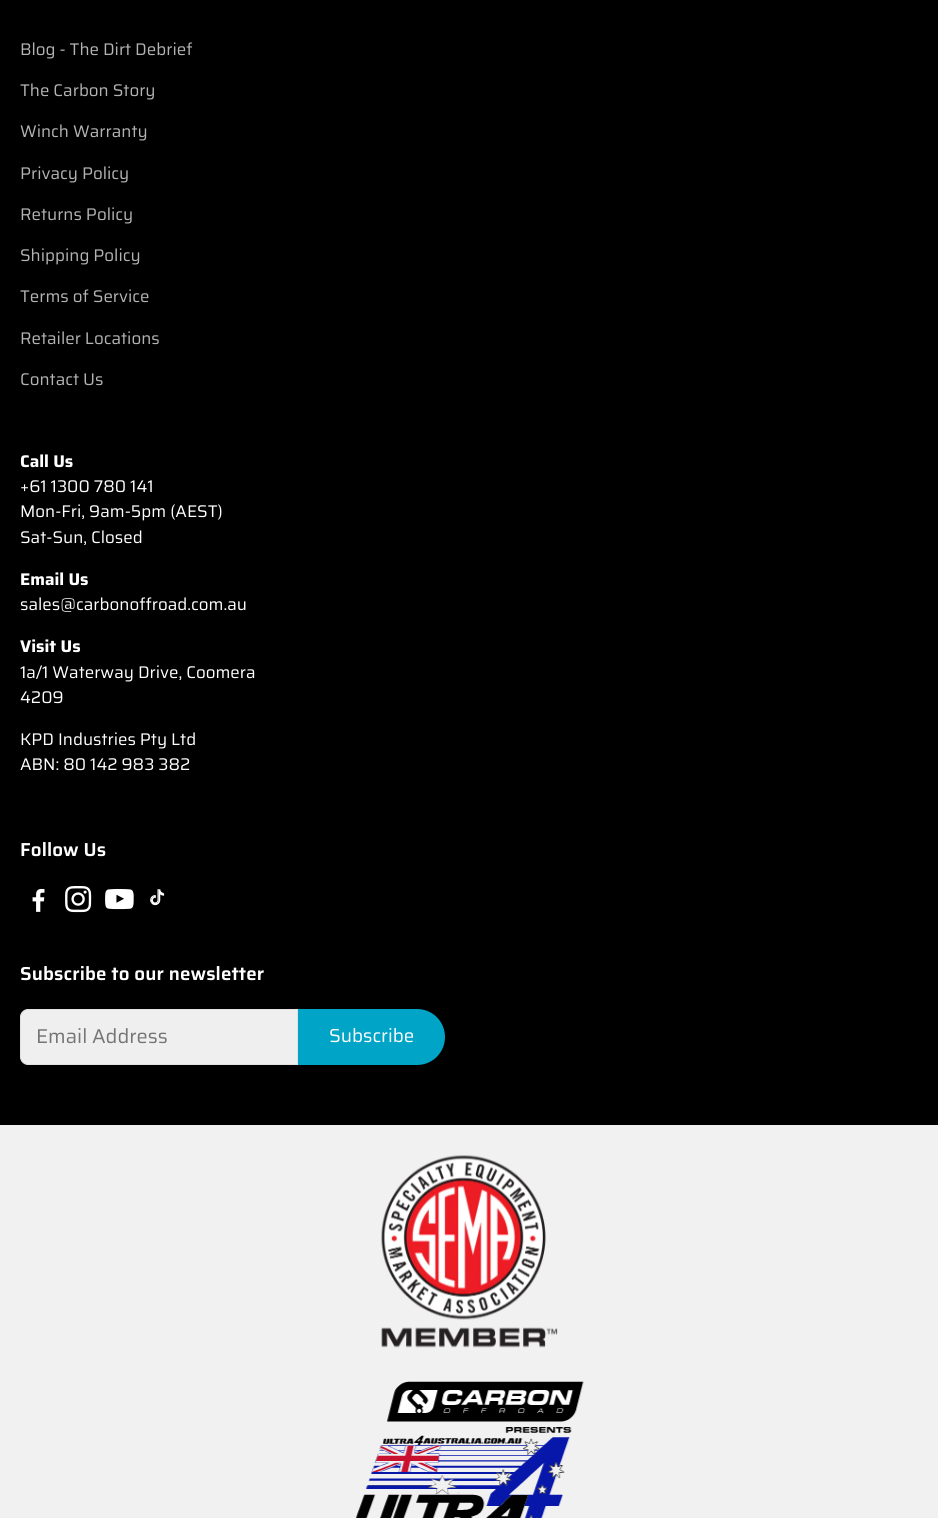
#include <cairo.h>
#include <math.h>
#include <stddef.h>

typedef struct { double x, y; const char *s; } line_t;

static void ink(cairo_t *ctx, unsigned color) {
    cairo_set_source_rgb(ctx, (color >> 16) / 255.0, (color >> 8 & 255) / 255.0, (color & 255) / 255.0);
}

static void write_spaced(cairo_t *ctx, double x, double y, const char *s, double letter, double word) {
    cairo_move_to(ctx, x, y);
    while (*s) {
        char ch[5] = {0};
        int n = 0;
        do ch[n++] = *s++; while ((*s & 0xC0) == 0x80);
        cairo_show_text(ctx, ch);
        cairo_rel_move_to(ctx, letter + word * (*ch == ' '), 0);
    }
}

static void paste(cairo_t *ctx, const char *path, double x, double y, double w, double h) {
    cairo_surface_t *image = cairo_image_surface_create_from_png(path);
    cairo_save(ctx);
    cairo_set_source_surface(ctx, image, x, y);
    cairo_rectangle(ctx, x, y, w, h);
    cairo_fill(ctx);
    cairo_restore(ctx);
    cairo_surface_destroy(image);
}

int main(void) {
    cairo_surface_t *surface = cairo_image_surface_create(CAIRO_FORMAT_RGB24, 938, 1518);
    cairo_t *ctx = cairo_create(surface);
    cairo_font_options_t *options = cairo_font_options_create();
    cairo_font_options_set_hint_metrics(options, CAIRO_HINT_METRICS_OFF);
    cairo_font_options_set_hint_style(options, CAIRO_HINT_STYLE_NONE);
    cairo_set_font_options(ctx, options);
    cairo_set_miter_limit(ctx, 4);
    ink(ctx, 0x000000);
    cairo_paint(ctx);
    cairo_select_font_face(ctx, "Saira", CAIRO_FONT_SLANT_NORMAL, CAIRO_FONT_WEIGHT_NORMAL);
    cairo_set_font_size(ctx, 16.9);
    ink(ctx, 0xB3B3B3);
    {
        static const line_t items[] = {
            {20, 55, "Blog - The Dirt Debrief"},
            {20, 96, "The Carbon Story"},
            {20, 137, "Winch Warranty"},
            {20, 179, "Privacy Policy"},
            {20, 220, "Returns Policy"},
            {20, 261, "Shipping Policy"},
            {20, 302, "Terms of Service"},
            {20, 344, "Retailer Locations"},
            {20, 385, "Contact Us"},
        };
        for (size_t i = 0; i < sizeof items / sizeof *items; i++) {
            cairo_move_to(ctx, items[i].x, items[i].y);
            cairo_show_text(ctx, items[i].s);
        }
    }
    cairo_select_font_face(ctx, "Saira", CAIRO_FONT_SLANT_NORMAL, CAIRO_FONT_WEIGHT_BOLD);
    ink(ctx, 0xFFFFFF);
    cairo_move_to(ctx, 20, 467);
    cairo_show_text(ctx, "Call Us");
    cairo_select_font_face(ctx, "Saira", CAIRO_FONT_SLANT_NORMAL, CAIRO_FONT_WEIGHT_NORMAL);
    {
        static const line_t items[] = {
            {20, 492, "+61 1300 780 141"},
            {20, 517, "Mon-Fri, 9am-5pm (AEST)"},
            {20, 543, "Sat-Sun, Closed"},
        };
        for (size_t i = 0; i < sizeof items / sizeof *items; i++) {
            cairo_move_to(ctx, items[i].x, items[i].y);
            cairo_show_text(ctx, items[i].s);
        }
    }
    cairo_select_font_face(ctx, "Saira", CAIRO_FONT_SLANT_NORMAL, CAIRO_FONT_WEIGHT_BOLD);
    cairo_move_to(ctx, 20, 585);
    cairo_show_text(ctx, "Email Us");
    cairo_select_font_face(ctx, "Saira", CAIRO_FONT_SLANT_NORMAL, CAIRO_FONT_WEIGHT_NORMAL);
    cairo_move_to(ctx, 20, 610);
    cairo_show_text(ctx, "sales@carbonoffroad.com.au");
    cairo_select_font_face(ctx, "Saira", CAIRO_FONT_SLANT_NORMAL, CAIRO_FONT_WEIGHT_BOLD);
    cairo_move_to(ctx, 20, 652);
    cairo_show_text(ctx, "Visit Us");
    cairo_select_font_face(ctx, "Saira", CAIRO_FONT_SLANT_NORMAL, CAIRO_FONT_WEIGHT_NORMAL);
    {
        static const line_t items[] = {
            {20, 678, "1a/1 Waterway Drive, Coomera"},
            {20, 703, "4209"},
            {20, 745, "KPD Industries Pty Ltd"},
            {20, 770, "ABN: 80 142 983 382"},
        };
        for (size_t i = 0; i < sizeof items / sizeof *items; i++) {
            cairo_move_to(ctx, items[i].x, items[i].y);
            cairo_show_text(ctx, items[i].s);
        }
    }
    cairo_select_font_face(ctx, "Saira SemiBold", CAIRO_FONT_SLANT_NORMAL, CAIRO_FONT_WEIGHT_NORMAL);
    cairo_set_font_size(ctx, 18.75);
    write_spaced(ctx, 20, 856, "Follow Us", 0.1, 0);
    paste(ctx, "media/1.png", 32, 888, 13, 24);
    paste(ctx, "media/2.png", 65, 886, 27, 27);
    paste(ctx, "media/3.png", 105, 889, 29, 21);
    paste(ctx, "media/4.png", 150, 889, 15, 17);
    write_spaced(ctx, 20, 980, "Subscribe to our newsletter", 0.1, 0);
    ink(ctx, 0xEFEFEF);
    cairo_new_path(ctx);
    cairo_move_to(ctx, 28, 1009.5);
    cairo_line_to(ctx, 297.5, 1009.5);
    cairo_line_to(ctx, 297.5, 1064.5);
    cairo_line_to(ctx, 28, 1064.5);
    cairo_curve_to(ctx, 24, 1064.5, 20.5, 1061, 20.5, 1057);
    cairo_line_to(ctx, 20.5, 1017);
    cairo_curve_to(ctx, 20.5, 1013, 24, 1009.5, 28, 1009.5);
    cairo_close_path(ctx);
    cairo_fill_preserve(ctx);
    ink(ctx, 0xE2E2E2);
    cairo_set_line_width(ctx, 1);
    cairo_stroke(ctx);
    cairo_select_font_face(ctx, "Saira", CAIRO_FONT_SLANT_NORMAL, CAIRO_FONT_WEIGHT_NORMAL);
    cairo_set_font_size(ctx, 20);
    ink(ctx, 0x757575);
    cairo_move_to(ctx, 36, 1043);
    cairo_show_text(ctx, "Email Address");
    ink(ctx, 0x00A4C7);
    cairo_new_path(ctx);
    cairo_move_to(ctx, 298, 1009);
    cairo_line_to(ctx, 417, 1009);
    cairo_curve_to(ctx, 432.5, 1009, 445, 1021.5, 445, 1037);
    cairo_curve_to(ctx, 445, 1052.5, 432.5, 1065, 417, 1065);
    cairo_line_to(ctx, 298, 1065);
    cairo_close_path(ctx);
    cairo_fill(ctx);
    cairo_set_font_size(ctx, 18.75);
    ink(ctx, 0xFFFFFF);
    cairo_move_to(ctx, 329, 1042);
    cairo_show_text(ctx, "Subscribe");
    ink(ctx, 0xF1F1F1);
    cairo_rectangle(ctx, 0, 1125, 938, 393);
    cairo_fill(ctx);
    paste(ctx, "media/5.png", 381, 1155, 177, 193);
    paste(ctx, "media/6.png", 356, 1381, 228, 137);
    cairo_surface_write_to_png(surface, "image.png");
    cairo_font_options_destroy(options);
    cairo_destroy(ctx);
    cairo_surface_destroy(surface);
    return 0;
}
